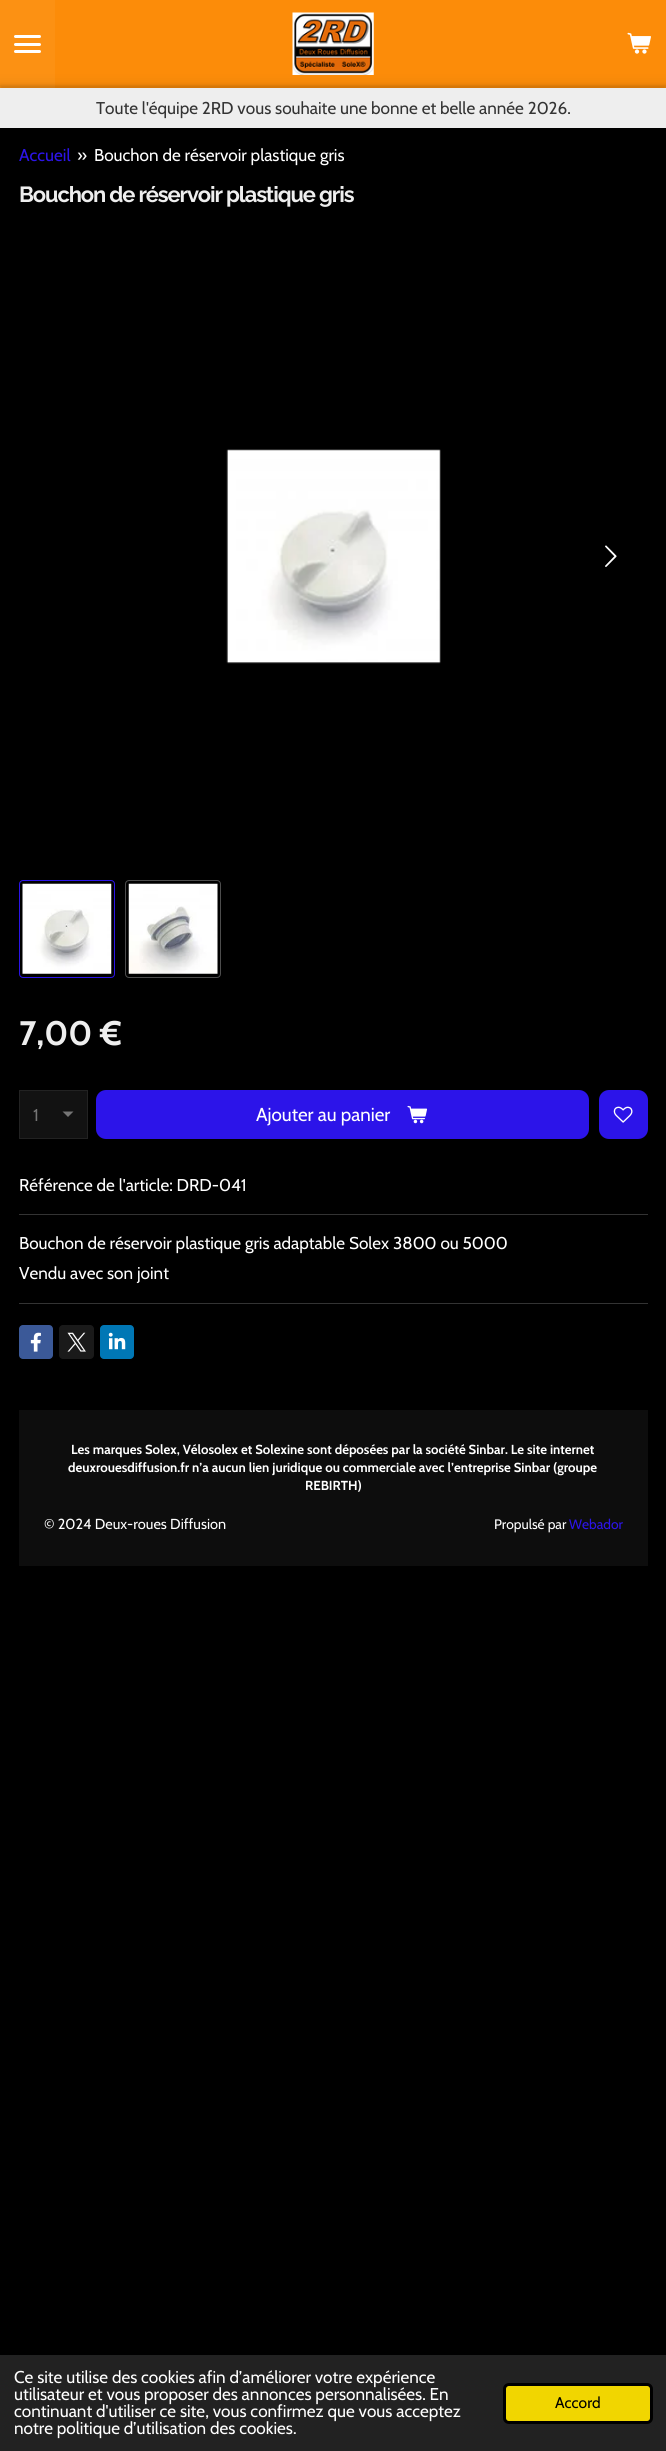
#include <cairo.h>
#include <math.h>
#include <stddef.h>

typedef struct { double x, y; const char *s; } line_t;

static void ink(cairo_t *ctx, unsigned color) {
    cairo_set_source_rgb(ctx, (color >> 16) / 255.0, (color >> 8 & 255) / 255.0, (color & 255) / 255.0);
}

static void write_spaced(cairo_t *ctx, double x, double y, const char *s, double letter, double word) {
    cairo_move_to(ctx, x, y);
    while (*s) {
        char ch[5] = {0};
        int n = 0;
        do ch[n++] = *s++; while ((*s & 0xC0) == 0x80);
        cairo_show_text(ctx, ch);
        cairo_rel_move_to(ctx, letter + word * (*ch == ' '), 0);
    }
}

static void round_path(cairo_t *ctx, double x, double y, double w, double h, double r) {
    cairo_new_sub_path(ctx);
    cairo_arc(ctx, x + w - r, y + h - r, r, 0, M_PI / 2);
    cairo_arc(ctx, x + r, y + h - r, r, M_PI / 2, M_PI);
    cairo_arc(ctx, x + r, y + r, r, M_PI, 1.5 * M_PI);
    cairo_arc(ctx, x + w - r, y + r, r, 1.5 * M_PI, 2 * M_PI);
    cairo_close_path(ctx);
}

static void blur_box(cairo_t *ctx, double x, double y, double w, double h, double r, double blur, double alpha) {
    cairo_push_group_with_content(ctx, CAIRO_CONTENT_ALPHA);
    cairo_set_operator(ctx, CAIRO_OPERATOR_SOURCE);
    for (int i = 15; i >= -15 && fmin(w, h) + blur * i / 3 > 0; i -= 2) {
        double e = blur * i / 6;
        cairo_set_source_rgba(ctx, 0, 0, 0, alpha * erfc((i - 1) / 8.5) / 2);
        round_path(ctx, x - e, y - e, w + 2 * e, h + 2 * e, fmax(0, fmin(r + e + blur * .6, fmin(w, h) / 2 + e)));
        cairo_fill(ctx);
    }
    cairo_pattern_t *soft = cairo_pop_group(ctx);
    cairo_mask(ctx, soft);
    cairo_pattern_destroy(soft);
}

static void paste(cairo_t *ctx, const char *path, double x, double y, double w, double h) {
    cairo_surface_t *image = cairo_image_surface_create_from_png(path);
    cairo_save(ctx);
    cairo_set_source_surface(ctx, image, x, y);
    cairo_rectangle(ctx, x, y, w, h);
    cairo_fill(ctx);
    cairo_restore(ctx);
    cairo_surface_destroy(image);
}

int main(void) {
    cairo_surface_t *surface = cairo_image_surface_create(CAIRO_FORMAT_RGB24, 666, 2451);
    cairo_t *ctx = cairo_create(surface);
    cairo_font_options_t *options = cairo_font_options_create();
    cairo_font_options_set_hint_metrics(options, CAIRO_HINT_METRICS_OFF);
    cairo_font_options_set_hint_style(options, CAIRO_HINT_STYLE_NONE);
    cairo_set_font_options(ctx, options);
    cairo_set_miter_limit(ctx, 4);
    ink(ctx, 0x000000);
    cairo_paint(ctx);
    ink(ctx, 0xFC9113);
    cairo_rectangle(ctx, 0, 0, 55, 88);
    cairo_fill(ctx);
    ink(ctx, 0xFFFFFF);
    round_path(ctx, 14, 43, 27, 3, 1.5);
    cairo_fill(ctx);
    round_path(ctx, 14, 35, 27, 3, 1.5);
    cairo_fill(ctx);
    round_path(ctx, 14, 50, 27, 3, 1.5);
    cairo_fill(ctx);
    ink(ctx, 0xFC8C09);
    cairo_rectangle(ctx, 55, 0, 611, 88);
    cairo_fill(ctx);
    paste(ctx, "media/1.png", 627, 32, 24, 22);
    paste(ctx, "media/2.png", 292, 12, 82, 63);
    ink(ctx, 0x000000);
    blur_box(ctx, 0, 85, 666, 40, 0, 1, 0.1);
    blur_box(ctx, 0, 85, 666, 40, 0, 6, 0.1);
    ink(ctx, 0xEEEEEE);
    cairo_rectangle(ctx, 0, 88, 666, 40);
    cairo_fill(ctx);
    cairo_select_font_face(ctx, "Cabin", CAIRO_FONT_SLANT_NORMAL, CAIRO_FONT_WEIGHT_NORMAL);
    cairo_set_font_size(ctx, 17.1);
    ink(ctx, 0x333333);
    cairo_move_to(ctx, 96, 114);
    cairo_show_text(ctx, "Toute l'équipe 2RD vous souhaite une bonne et belle année 2026.");
    ink(ctx, 0x2C14E9);
    cairo_move_to(ctx, 19, 161);
    cairo_show_text(ctx, "Accueil");
    ink(ctx, 0xFFFFFF);
    cairo_move_to(ctx, 77, 161);
    cairo_show_text(ctx, "»");
    cairo_move_to(ctx, 94, 161);
    cairo_show_text(ctx, "Bouchon de réservoir plastique gris");
    cairo_select_font_face(ctx, "Raleway", CAIRO_FONT_SLANT_NORMAL, CAIRO_FONT_WEIGHT_BOLD);
    cairo_set_font_size(ctx, 21.9);
    ink(ctx, 0xEEEEEE);
    write_spaced(ctx, 19, 202, "Bouchon de réservoir plastique gris", -1.1, 0);
    paste(ctx, "media/3.png", 226, 449, 215, 215);
    paste(ctx, "media/4.png", 605, 545, 12, 22);
    round_path(ctx, 19.5, 880.5, 95, 97, 3.5);
    ink(ctx, 0x2C14E9);
    cairo_set_line_width(ctx, 1);
    cairo_stroke(ctx);
    paste(ctx, "media/5.png", 22, 883, 90, 91);
    round_path(ctx, 125.5, 880.5, 95, 97, 3.5);
    ink(ctx, 0x4D4D4D);
    cairo_stroke(ctx);
    paste(ctx, "media/6.png", 128, 883, 90, 91);
    cairo_select_font_face(ctx, "Cabin", CAIRO_FONT_SLANT_NORMAL, CAIRO_FONT_WEIGHT_BOLD);
    cairo_set_font_size(ctx, 34);
    ink(ctx, 0xEEEEEE);
    cairo_move_to(ctx, 19, 1045);
    cairo_show_text(ctx, "7,00 €");
    ink(ctx, 0x121212);
    cairo_rectangle(ctx, 20, 1091, 67, 47);
    cairo_fill(ctx);
    ink(ctx, 0x757575);
    cairo_new_path(ctx);
    cairo_move_to(ctx, 68, 1117);
    cairo_line_to(ctx, 62.5, 1111.5);
    cairo_line_to(ctx, 73.5, 1111.5);
    cairo_close_path(ctx);
    cairo_fill(ctx);
    cairo_rectangle(ctx, 19.5, 1090.5, 68, 48);
    ink(ctx, 0x222222);
    cairo_stroke(ctx);
    cairo_select_font_face(ctx, "Cabin", CAIRO_FONT_SLANT_NORMAL, CAIRO_FONT_WEIGHT_NORMAL);
    cairo_set_font_size(ctx, 17.1);
    ink(ctx, 0x757575);
    cairo_move_to(ctx, 33, 1121);
    cairo_show_text(ctx, "1");
    ink(ctx, 0x2C14E9);
    round_path(ctx, 96, 1090, 493, 49, 10);
    cairo_fill(ctx);
    cairo_set_font_size(ctx, 18.75);
    ink(ctx, 0xFFFFFF);
    cairo_move_to(ctx, 256, 1121);
    cairo_show_text(ctx, "Ajouter au panier");
    paste(ctx, "media/7.png", 407, 1105, 21, 19);
    ink(ctx, 0x2C14E9);
    round_path(ctx, 599, 1090, 49, 49, 10);
    cairo_fill(ctx);
    paste(ctx, "media/8.png", 613, 1106, 20, 17);
    cairo_set_font_size(ctx, 17.1);
    ink(ctx, 0xFFFFFF);
    cairo_move_to(ctx, 19, 1191);
    cairo_show_text(ctx, "Référence de l'article: DRD-041");
    ink(ctx, 0x333333);
    cairo_rectangle(ctx, 19, 1214, 629, 1);
    cairo_fill(ctx);
    ink(ctx, 0xFFFFFF);
    cairo_move_to(ctx, 19, 1249);
    cairo_show_text(ctx, "Bouchon de réservoir plastique gris adaptable Solex 3800 ou 5000");
    cairo_move_to(ctx, 19, 1279);
    cairo_show_text(ctx, "Vendu avec son joint");
    ink(ctx, 0x333333);
    cairo_rectangle(ctx, 19, 1303, 629, 1);
    cairo_fill(ctx);
    ink(ctx, 0x3B5998);
    round_path(ctx, 19, 1325, 34, 34, 4);
    cairo_fill(ctx);
    paste(ctx, "media/9.png", 30, 1332, 11, 20);
    ink(ctx, 0x1A1A1A);
    round_path(ctx, 59, 1325, 35, 34, 4);
    cairo_fill(ctx);
    paste(ctx, "media/10.png", 67, 1332, 19, 20);
    ink(ctx, 0x0077B5);
    round_path(ctx, 100, 1325, 34, 34, 4);
    cairo_fill(ctx);
    paste(ctx, "media/11.png", 108, 1332, 18, 18);
    ink(ctx, 0x0D0D0D);
    cairo_rectangle(ctx, 19, 1410, 629, 156);
    cairo_fill(ctx);
    cairo_select_font_face(ctx, "Cabin", CAIRO_FONT_SLANT_NORMAL, CAIRO_FONT_WEIGHT_BOLD);
    cairo_set_font_size(ctx, 13.1);
    ink(ctx, 0xFFFFFF);
    {
        static const line_t items[] = {
            {71, 1454, "Les marques Solex, Vélosolex et Solexine sont déposées par la société Sinbar. Le site internet"},
            {68, 1472, "deuxrouesdiffusion.fr n’a aucun lien juridique ou commerciale avec l’entreprise Sinbar (groupe"},
            {305, 1490, "REBIRTH)"},
        };
        for (size_t i = 0; i < sizeof items / sizeof *items; i++) {
            cairo_move_to(ctx, items[i].x, items[i].y);
            cairo_show_text(ctx, items[i].s);
        }
    }
    cairo_select_font_face(ctx, "Cabin", CAIRO_FONT_SLANT_NORMAL, CAIRO_FONT_WEIGHT_NORMAL);
    cairo_set_font_size(ctx, 14.5);
    cairo_move_to(ctx, 44, 1529);
    cairo_show_text(ctx, "© 2024 Deux-roues Diffusion");
    cairo_set_font_size(ctx, 13.75);
    cairo_move_to(ctx, 494, 1529);
    cairo_show_text(ctx, "Propulsé par");
    ink(ctx, 0x2C14E9);
    cairo_move_to(ctx, 569, 1529);
    cairo_show_text(ctx, "Webador");
    ink(ctx, 0x222222);
    cairo_rectangle(ctx, 0, 2355, 666, 96);
    cairo_fill(ctx);
    cairo_set_font_size(ctx, 17.1);
    ink(ctx, 0xFFFFFF);
    {
        static const line_t items[] = {
            {14, 2383, "Ce site utilise des cookies afin d’améliorer votre expérience"},
            {14, 2400, "utilisateur et vous proposer des annonces personnalisées. En"},
            {14, 2417, "continuant d'utiliser ce site, vous confirmez que vous acceptez"},
            {14, 2434, "notre politique d’utilisation des cookies."},
        };
        for (size_t i = 0; i < sizeof items / sizeof *items; i++) {
            cairo_move_to(ctx, items[i].x, items[i].y);
            cairo_show_text(ctx, items[i].s);
        }
    }
    ink(ctx, 0xF1D600);
    round_path(ctx, 504.5, 2384.5, 147, 38, 4.5);
    cairo_fill_preserve(ctx);
    ink(ctx, 0x000000);
    cairo_set_line_width(ctx, 3);
    cairo_stroke(ctx);
    cairo_set_font_size(ctx, 15.5);
    cairo_move_to(ctx, 555, 2408);
    cairo_show_text(ctx, "Accord");
    cairo_surface_write_to_png(surface, "image.png");
    cairo_font_options_destroy(options);
    cairo_destroy(ctx);
    cairo_surface_destroy(surface);
    return 0;
}
